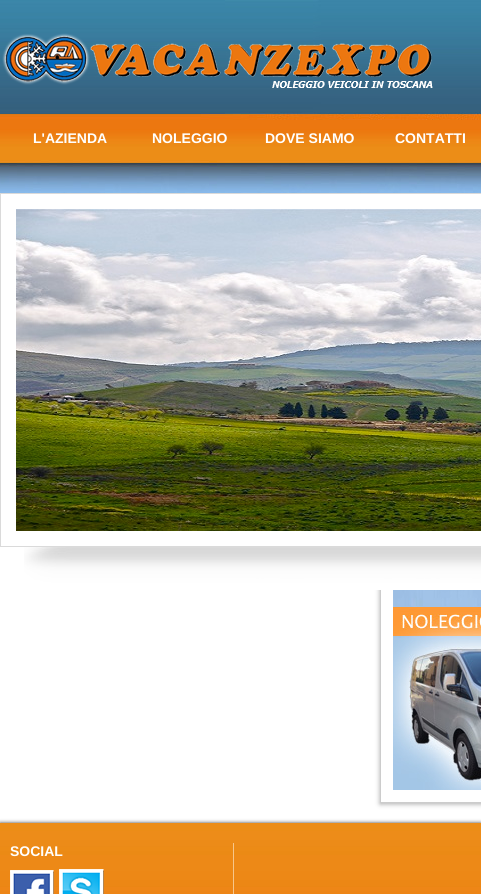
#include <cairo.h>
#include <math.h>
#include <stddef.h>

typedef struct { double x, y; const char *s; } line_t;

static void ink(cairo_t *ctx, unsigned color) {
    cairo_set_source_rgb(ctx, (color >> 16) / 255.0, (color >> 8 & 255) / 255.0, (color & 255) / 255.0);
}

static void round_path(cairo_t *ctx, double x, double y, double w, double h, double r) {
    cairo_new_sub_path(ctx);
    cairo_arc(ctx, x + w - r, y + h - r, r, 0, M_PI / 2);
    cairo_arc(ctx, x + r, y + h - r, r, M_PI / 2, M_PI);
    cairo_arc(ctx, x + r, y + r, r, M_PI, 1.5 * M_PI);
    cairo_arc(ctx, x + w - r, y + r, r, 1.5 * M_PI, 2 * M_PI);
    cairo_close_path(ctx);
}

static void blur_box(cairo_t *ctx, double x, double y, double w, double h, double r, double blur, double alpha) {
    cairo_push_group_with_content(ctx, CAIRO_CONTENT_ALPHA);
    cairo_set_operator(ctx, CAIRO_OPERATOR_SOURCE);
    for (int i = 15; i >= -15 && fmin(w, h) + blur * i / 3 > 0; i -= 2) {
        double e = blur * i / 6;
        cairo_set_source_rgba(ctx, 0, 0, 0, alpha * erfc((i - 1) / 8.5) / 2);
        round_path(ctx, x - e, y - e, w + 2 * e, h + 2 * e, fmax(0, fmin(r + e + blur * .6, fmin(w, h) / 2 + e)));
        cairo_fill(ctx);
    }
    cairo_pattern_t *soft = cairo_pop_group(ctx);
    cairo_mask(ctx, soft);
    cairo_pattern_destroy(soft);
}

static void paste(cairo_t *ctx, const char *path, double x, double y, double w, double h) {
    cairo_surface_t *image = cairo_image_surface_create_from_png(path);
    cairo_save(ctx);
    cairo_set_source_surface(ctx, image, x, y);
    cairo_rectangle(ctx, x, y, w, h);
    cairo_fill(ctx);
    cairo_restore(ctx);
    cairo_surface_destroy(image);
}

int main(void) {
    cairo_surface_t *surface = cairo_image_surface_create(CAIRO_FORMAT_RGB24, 481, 894);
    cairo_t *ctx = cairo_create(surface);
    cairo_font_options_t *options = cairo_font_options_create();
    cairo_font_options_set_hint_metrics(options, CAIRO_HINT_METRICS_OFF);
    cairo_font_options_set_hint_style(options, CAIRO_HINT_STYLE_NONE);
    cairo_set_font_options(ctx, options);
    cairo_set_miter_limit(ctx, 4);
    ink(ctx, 0xFFFFFF);
    cairo_paint(ctx);
    paste(ctx, "media/1.png", 0, 0, 481, 193);
    paste(ctx, "media/2.png", 2, 33, 431, 55);
    cairo_select_font_face(ctx, "Liberation Sans", CAIRO_FONT_SLANT_NORMAL, CAIRO_FONT_WEIGHT_BOLD);
    cairo_set_font_size(ctx, 14);
    ink(ctx, 0xFFFFFF);
    {
        static const line_t items[] = {
            {33, 143, "L'AZIENDA"},
            {152, 143, "NOLEGGIO"},
            {265, 143, "DOVE SIAMO"},
            {395, 143, "CONTATTI"},
        };
        for (size_t i = 0; i < sizeof items / sizeof *items; i++) {
            cairo_move_to(ctx, items[i].x, items[i].y);
            cairo_show_text(ctx, items[i].s);
        }
    }
    cairo_rectangle(ctx, 0.5, 193.5, 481, 353);
    ink(ctx, 0xDADADA);
    cairo_set_line_width(ctx, 1);
    cairo_stroke(ctx);
    paste(ctx, "media/3.png", 16, 209, 465, 322);
    cairo_save(ctx);
    cairo_set_fill_rule(ctx, CAIRO_FILL_RULE_EVEN_ODD);
    cairo_new_path(ctx);
    cairo_move_to(ctx, 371, 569);
    cairo_line_to(ctx, 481, 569);
    cairo_line_to(ctx, 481, 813);
    cairo_line_to(ctx, 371, 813);
    cairo_close_path(ctx);
    cairo_move_to(ctx, 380, 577);
    cairo_line_to(ctx, 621, 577);
    cairo_line_to(ctx, 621, 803);
    cairo_line_to(ctx, 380, 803);
    cairo_close_path(ctx);
    cairo_clip(ctx);
    ink(ctx, 0xAAAAAA);
    blur_box(ctx, 380, 578, 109, 226, 0, 2.5, 1);
    cairo_restore(ctx);
    cairo_rectangle(ctx, 380.5, 577.5, 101, 225);
    ink(ctx, 0xCCCCCC);
    cairo_stroke(ctx);
    paste(ctx, "media/4.png", 24, 547, 457, 43);
    paste(ctx, "media/5.png", 393, 590, 88, 200);
    ink(ctx, 0x444444);
    blur_box(ctx, 0, 823, 481, 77, 0, 2, 1);
    paste(ctx, "media/6.png", 0, 823, 481, 71);
    ink(ctx, 0xF7C68A);
    cairo_rectangle(ctx, 233, 843, 1, 51);
    cairo_fill(ctx);
    ink(ctx, 0xFFFFFF);
    cairo_move_to(ctx, 10, 856);
    cairo_show_text(ctx, "SOCIAL");
    paste(ctx, "media/7.png", 10, 870, 44, 24);
    paste(ctx, "media/8.png", 59, 869, 45, 25);
    cairo_surface_write_to_png(surface, "image.png");
    cairo_font_options_destroy(options);
    cairo_destroy(ctx);
    cairo_surface_destroy(surface);
    return 0;
}
